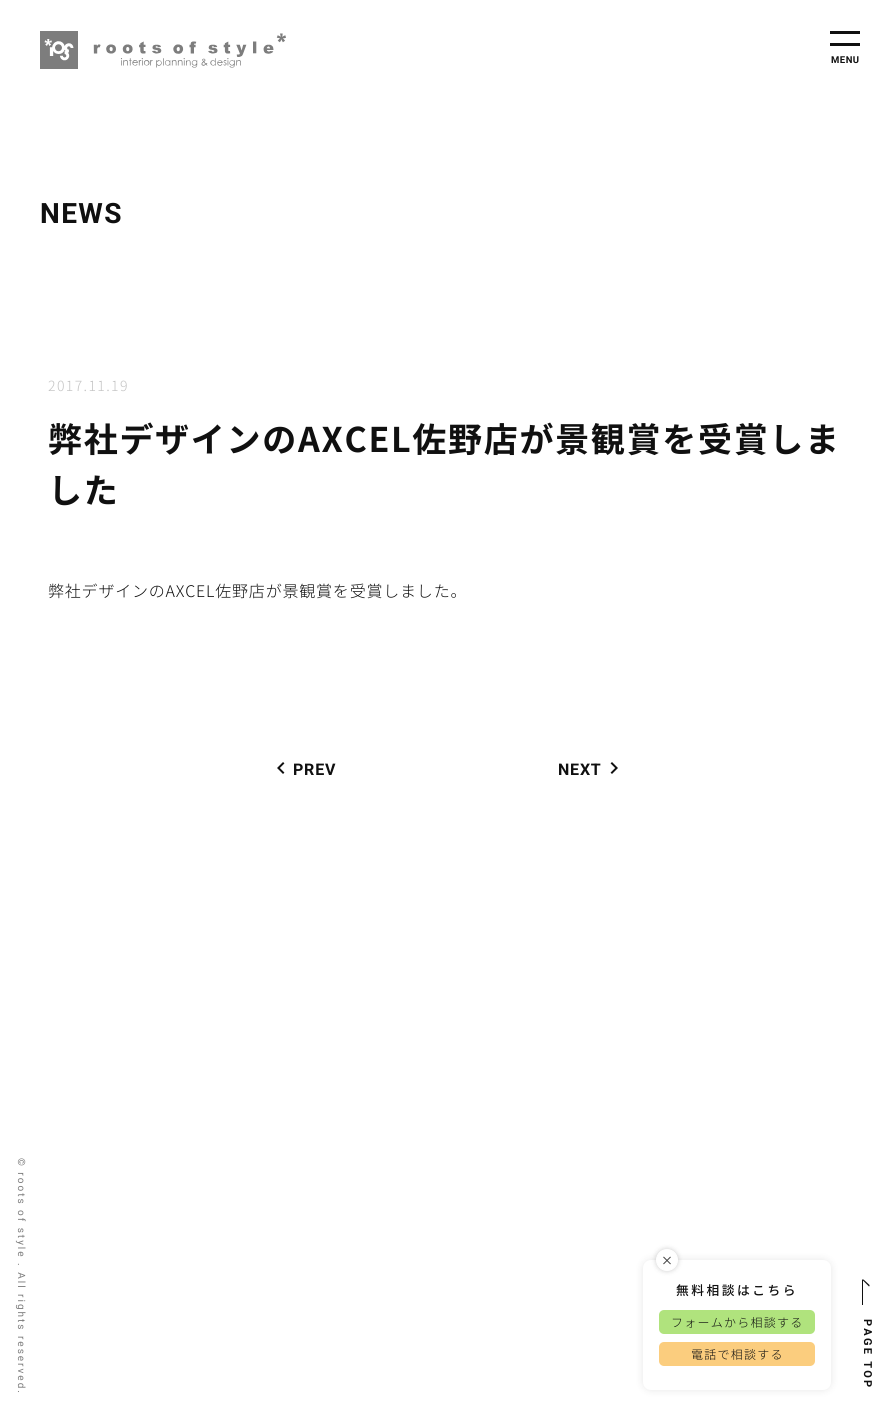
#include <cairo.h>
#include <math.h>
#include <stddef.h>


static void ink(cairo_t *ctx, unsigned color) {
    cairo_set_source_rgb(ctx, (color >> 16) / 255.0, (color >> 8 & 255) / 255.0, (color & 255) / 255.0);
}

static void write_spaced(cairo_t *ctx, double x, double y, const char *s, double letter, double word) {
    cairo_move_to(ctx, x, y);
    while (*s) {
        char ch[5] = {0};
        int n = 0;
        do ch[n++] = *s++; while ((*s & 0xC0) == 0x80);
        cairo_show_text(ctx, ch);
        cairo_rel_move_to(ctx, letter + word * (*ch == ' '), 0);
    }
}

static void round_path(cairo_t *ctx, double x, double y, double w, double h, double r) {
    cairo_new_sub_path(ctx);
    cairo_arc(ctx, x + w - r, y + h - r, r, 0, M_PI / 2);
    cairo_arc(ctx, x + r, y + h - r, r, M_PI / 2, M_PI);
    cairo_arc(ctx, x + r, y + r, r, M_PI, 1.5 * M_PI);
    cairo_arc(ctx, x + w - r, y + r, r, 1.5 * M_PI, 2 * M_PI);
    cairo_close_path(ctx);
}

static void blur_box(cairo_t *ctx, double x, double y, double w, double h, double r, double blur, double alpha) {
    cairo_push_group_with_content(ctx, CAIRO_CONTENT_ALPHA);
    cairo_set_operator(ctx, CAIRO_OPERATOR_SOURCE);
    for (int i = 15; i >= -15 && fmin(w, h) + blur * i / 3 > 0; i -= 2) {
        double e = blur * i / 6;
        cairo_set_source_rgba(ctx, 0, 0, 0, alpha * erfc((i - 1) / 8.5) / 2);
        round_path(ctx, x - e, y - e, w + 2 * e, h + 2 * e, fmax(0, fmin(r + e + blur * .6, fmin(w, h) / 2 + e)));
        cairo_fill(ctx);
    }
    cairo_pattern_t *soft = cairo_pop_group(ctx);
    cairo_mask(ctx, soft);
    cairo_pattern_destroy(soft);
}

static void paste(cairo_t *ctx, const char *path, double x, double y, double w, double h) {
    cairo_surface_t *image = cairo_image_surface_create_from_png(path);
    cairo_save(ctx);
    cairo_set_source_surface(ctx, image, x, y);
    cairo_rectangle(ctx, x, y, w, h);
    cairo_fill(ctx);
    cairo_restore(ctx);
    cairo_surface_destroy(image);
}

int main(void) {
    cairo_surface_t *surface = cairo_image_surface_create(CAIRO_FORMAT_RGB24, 895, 1422);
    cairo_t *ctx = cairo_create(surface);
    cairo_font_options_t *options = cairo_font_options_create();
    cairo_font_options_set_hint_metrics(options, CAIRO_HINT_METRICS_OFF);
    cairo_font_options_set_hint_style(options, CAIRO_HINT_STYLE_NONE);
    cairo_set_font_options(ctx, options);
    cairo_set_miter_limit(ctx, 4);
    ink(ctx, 0xFFFFFF);
    cairo_paint(ctx);
    paste(ctx, "media/1.png", 40, 31, 246, 38);
    ink(ctx, 0x101010);
    cairo_rectangle(ctx, 830, 31, 30, 3);
    cairo_fill(ctx);
    cairo_rectangle(ctx, 830, 43, 30, 3);
    cairo_fill(ctx);
    cairo_select_font_face(ctx, "Roboto", CAIRO_FONT_SLANT_NORMAL, CAIRO_FONT_WEIGHT_BOLD);
    cairo_set_font_size(ctx, 9.5);
    write_spaced(ctx, 831, 63, "MENU", 0.5, 0);
    cairo_set_font_size(ctx, 28);
    write_spaced(ctx, 40, 223, "NEWS", 1.4, 0);
    cairo_select_font_face(ctx, "Noto Sans JP Light", CAIRO_FONT_SLANT_NORMAL, CAIRO_FONT_WEIGHT_NORMAL);
    cairo_set_font_size(ctx, 14);
    ink(ctx, 0xC4C4C4);
    write_spaced(ctx, 48, 391, "2017.11.19", 1.4, 0);
    cairo_select_font_face(ctx, "Noto Sans JP", CAIRO_FONT_SLANT_NORMAL, CAIRO_FONT_WEIGHT_BOLD);
    cairo_set_font_size(ctx, 34);
    ink(ctx, 0x101010);
    write_spaced(ctx, 48, 452, "弊社デザインのAXCEL佐野店が景観賞を受賞しま", 1.7, 0);
    write_spaced(ctx, 48, 503, "した", 1.7, 0);
    cairo_select_font_face(ctx, "Noto Sans JP Light", CAIRO_FONT_SLANT_NORMAL, CAIRO_FONT_WEIGHT_NORMAL);
    cairo_set_font_size(ctx, 16);
    write_spaced(ctx, 48, 597, "弊社デザインのAXCEL佐野店が景観賞を受賞しました。", 0.8, 0);
    paste(ctx, "media/2.png", 277, 762, 8, 12);
    cairo_select_font_face(ctx, "Roboto", CAIRO_FONT_SLANT_NORMAL, CAIRO_FONT_WEIGHT_BOLD);
    write_spaced(ctx, 293, 775, "PREV", 0.8, 0);
    write_spaced(ctx, 558, 775, "NEXT", 0.8, 0);
    paste(ctx, "media/3.png", 610, 762, 8, 12);
    cairo_select_font_face(ctx, "Roboto", CAIRO_FONT_SLANT_NORMAL, CAIRO_FONT_WEIGHT_NORMAL);
    cairo_set_font_size(ctx, 10);
    ink(ctx, 0x7C7C7C);
    cairo_save(ctx);
    cairo_translate(ctx, 18, 1158);
    cairo_rotate(ctx, 90 * M_PI / 180);
    write_spaced(ctx, 0, 0, "© roots of style . All rights reserved.", 2, 0);
    cairo_restore(ctx);
    ink(ctx, 0x101010);
    cairo_new_path(ctx);
    cairo_move_to(ctx, 863, 1280.5);
    cairo_line_to(ctx, 869, 1286.5);
    cairo_line_to(ctx, 869.5, 1286);
    cairo_line_to(ctx, 869.5, 1285);
    cairo_line_to(ctx, 863.5, 1279.5);
    cairo_line_to(ctx, 862, 1279.5);
    cairo_line_to(ctx, 862, 1305);
    cairo_line_to(ctx, 863, 1305);
    cairo_close_path(ctx);
    cairo_fill(ctx);
    cairo_select_font_face(ctx, "Roboto", CAIRO_FONT_SLANT_NORMAL, CAIRO_FONT_WEIGHT_BOLD);
    cairo_set_font_size(ctx, 11);
    cairo_save(ctx);
    cairo_translate(ctx, 864, 1319);
    cairo_rotate(ctx, 90 * M_PI / 180);
    write_spaced(ctx, 0, 0, "PAGE TOP", 2.25, 0);
    cairo_restore(ctx);
    ink(ctx, 0x000000);
    blur_box(ctx, 643, 1260, 188, 130, 8, 4, 0.1);
    ink(ctx, 0xFFFFFF);
    round_path(ctx, 643, 1260, 188, 130, 8);
    cairo_fill(ctx);
    ink(ctx, 0x000000);
    blur_box(ctx, 656, 1249, 22, 22, 11, 2.5, 0.2);
    ink(ctx, 0xFFFFFF);
    cairo_arc(ctx, 667, 1260, 10.5, 0, 2 * M_PI);
    cairo_fill_preserve(ctx);
    cairo_set_line_width(ctx, 1);
    cairo_stroke(ctx);
    cairo_select_font_face(ctx, "Noto Sans JP Medium", CAIRO_FONT_SLANT_NORMAL, CAIRO_FONT_WEIGHT_NORMAL);
    cairo_set_font_size(ctx, 12);
    ink(ctx, 0x434343);
    cairo_move_to(ctx, 661, 1265);
    cairo_show_text(ctx, "×");
    cairo_set_font_size(ctx, 12.75);
    ink(ctx, 0x101010);
    write_spaced(ctx, 676, 1295, "無料相談はこちら", 2.5, 0);
    ink(ctx, 0xB0E37D);
    round_path(ctx, 659, 1310, 156, 24, 5);
    cairo_fill(ctx);
    cairo_select_font_face(ctx, "Noto Sans JP Light", CAIRO_FONT_SLANT_NORMAL, CAIRO_FONT_WEIGHT_NORMAL);
    cairo_set_font_size(ctx, 12);
    ink(ctx, 0x101010);
    write_spaced(ctx, 671, 1327, "フォームから相談する", 1.25, 0);
    ink(ctx, 0xFBCD7E);
    round_path(ctx, 659, 1342, 156, 24, 5);
    cairo_fill(ctx);
    ink(ctx, 0x101010);
    write_spaced(ctx, 691, 1359, "電話で相談する", 1.25, 0);
    cairo_surface_write_to_png(surface, "image.png");
    cairo_font_options_destroy(options);
    cairo_destroy(ctx);
    cairo_surface_destroy(surface);
    return 0;
}
